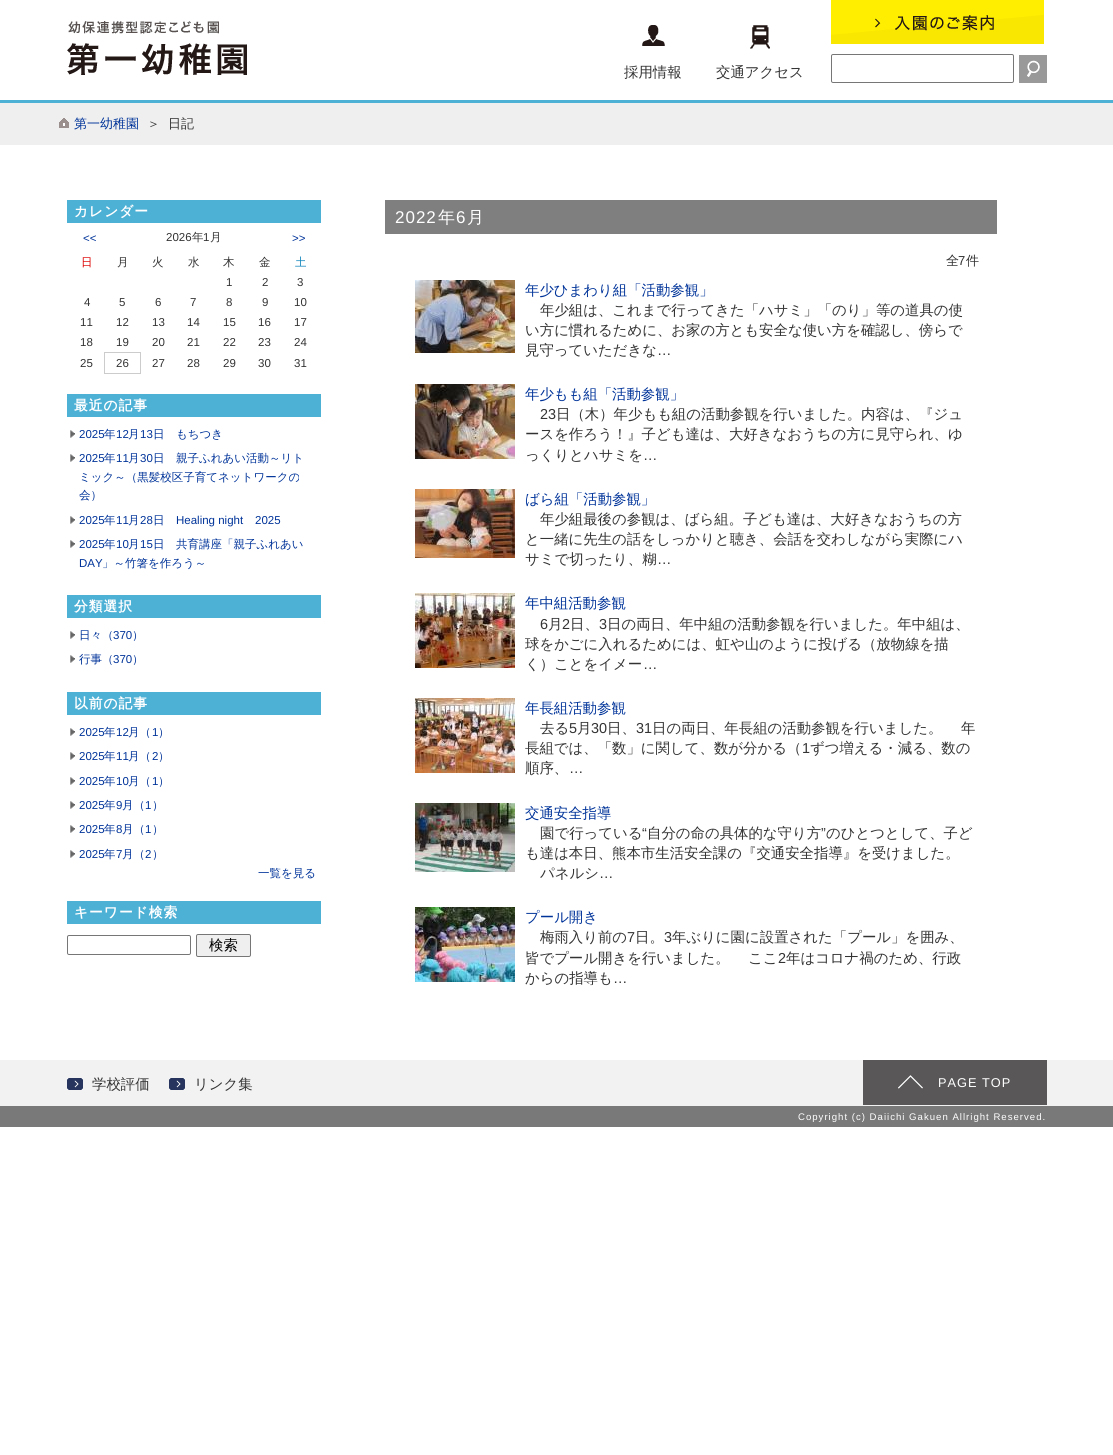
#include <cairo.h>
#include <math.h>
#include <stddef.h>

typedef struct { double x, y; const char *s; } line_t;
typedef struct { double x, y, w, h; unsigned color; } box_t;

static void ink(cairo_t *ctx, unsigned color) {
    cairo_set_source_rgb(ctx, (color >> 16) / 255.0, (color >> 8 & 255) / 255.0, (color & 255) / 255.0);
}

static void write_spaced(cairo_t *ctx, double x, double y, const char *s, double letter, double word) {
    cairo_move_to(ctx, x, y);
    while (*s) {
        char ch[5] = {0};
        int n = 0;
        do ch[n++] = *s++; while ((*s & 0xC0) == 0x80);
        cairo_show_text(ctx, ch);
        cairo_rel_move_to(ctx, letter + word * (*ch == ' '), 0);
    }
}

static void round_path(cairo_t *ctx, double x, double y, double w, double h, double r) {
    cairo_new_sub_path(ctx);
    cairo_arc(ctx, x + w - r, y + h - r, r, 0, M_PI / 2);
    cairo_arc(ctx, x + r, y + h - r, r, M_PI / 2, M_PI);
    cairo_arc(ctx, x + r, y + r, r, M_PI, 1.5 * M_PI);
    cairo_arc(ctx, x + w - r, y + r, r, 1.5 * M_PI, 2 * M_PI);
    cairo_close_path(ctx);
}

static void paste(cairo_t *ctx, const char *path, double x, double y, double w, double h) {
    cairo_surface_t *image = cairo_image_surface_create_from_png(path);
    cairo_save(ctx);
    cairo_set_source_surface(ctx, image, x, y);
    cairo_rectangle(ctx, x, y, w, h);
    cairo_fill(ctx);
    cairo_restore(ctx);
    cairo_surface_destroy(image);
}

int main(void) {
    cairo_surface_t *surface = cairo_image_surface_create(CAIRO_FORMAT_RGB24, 1113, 1455);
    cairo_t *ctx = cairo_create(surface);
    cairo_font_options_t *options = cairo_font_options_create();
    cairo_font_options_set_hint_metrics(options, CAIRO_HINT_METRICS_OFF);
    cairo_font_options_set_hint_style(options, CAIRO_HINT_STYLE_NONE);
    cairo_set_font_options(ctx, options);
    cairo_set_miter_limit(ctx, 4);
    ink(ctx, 0xFFFFFF);
    cairo_paint(ctx);
    paste(ctx, "media/1.png", 67, 21, 180, 54);
    paste(ctx, "media/2.png", 642, 25, 23, 21);
    cairo_select_font_face(ctx, "WenQuanYi Zen Hei Medium", CAIRO_FONT_SLANT_NORMAL, CAIRO_FONT_WEIGHT_NORMAL);
    cairo_set_font_size(ctx, 14.4);
    ink(ctx, 0x333333);
    cairo_move_to(ctx, 624, 77);
    cairo_show_text(ctx, "採用情報");
    paste(ctx, "media/3.png", 750, 25, 20, 24);
    cairo_move_to(ctx, 716, 77);
    cairo_show_text(ctx, "交通アクセス");
    paste(ctx, "media/4.png", 831, 0, 213, 44);
    round_path(ctx, 831.5, 54.5, 182, 28, 1.5);
    ink(ctx, 0x767676);
    cairo_set_line_width(ctx, 1);
    cairo_stroke(ctx);
    paste(ctx, "media/5.png", 1019, 55, 28, 28);
    ink(ctx, 0xEFEFEF);
    cairo_rectangle(ctx, 0, 103, 1113, 42);
    cairo_fill(ctx);
    ink(ctx, 0x4DB0D5);
    cairo_rectangle(ctx, 0, 100, 1113, 3);
    cairo_fill(ctx);
    paste(ctx, "media/6.png", 59, 118, 10, 10);
    cairo_set_font_size(ctx, 13);
    ink(ctx, 0x003399);
    cairo_move_to(ctx, 74, 128);
    cairo_show_text(ctx, "第一幼稚園");
    ink(ctx, 0x333333);
    cairo_move_to(ctx, 147, 128);
    cairo_show_text(ctx, "＞");
    cairo_move_to(ctx, 168, 128);
    cairo_show_text(ctx, "日記");
    ink(ctx, 0x4DB0D5);
    cairo_rectangle(ctx, 67, 200, 254, 23);
    cairo_fill(ctx);
    cairo_select_font_face(ctx, "WenQuanYi Zen Hei", CAIRO_FONT_SLANT_NORMAL, CAIRO_FONT_WEIGHT_BOLD);
    cairo_set_font_size(ctx, 13.75);
    ink(ctx, 0xFFFFFF);
    write_spaced(ctx, 74, 216, "カレンダー", 1, 0);
    cairo_select_font_face(ctx, "Liberation Sans", CAIRO_FONT_SLANT_NORMAL, CAIRO_FONT_WEIGHT_NORMAL);
    cairo_set_font_size(ctx, 11.5);
    ink(ctx, 0x003399);
    cairo_move_to(ctx, 83, 242);
    cairo_show_text(ctx, "<<");
    ink(ctx, 0x333333);
    cairo_move_to(ctx, 166, 241);
    cairo_show_text(ctx, "2026");
    cairo_select_font_face(ctx, "WenQuanYi Zen Hei Medium", CAIRO_FONT_SLANT_NORMAL, CAIRO_FONT_WEIGHT_NORMAL);
    cairo_move_to(ctx, 192, 241);
    cairo_show_text(ctx, "年");
    cairo_select_font_face(ctx, "Liberation Sans", CAIRO_FONT_SLANT_NORMAL, CAIRO_FONT_WEIGHT_NORMAL);
    cairo_move_to(ctx, 203, 241);
    cairo_show_text(ctx, "1");
    cairo_select_font_face(ctx, "WenQuanYi Zen Hei Medium", CAIRO_FONT_SLANT_NORMAL, CAIRO_FONT_WEIGHT_NORMAL);
    cairo_move_to(ctx, 210, 241);
    cairo_show_text(ctx, "月");
    cairo_select_font_face(ctx, "Liberation Sans", CAIRO_FONT_SLANT_NORMAL, CAIRO_FONT_WEIGHT_NORMAL);
    ink(ctx, 0x003399);
    cairo_move_to(ctx, 292, 242);
    cairo_show_text(ctx, ">>");
    cairo_select_font_face(ctx, "WenQuanYi Zen Hei Medium", CAIRO_FONT_SLANT_NORMAL, CAIRO_FONT_WEIGHT_NORMAL);
    ink(ctx, 0xDD0000);
    cairo_move_to(ctx, 81, 266);
    cairo_show_text(ctx, "日");
    ink(ctx, 0x333333);
    {
        static const line_t items[] = {
            {117, 266, "月"},
            {152, 266, "火"},
            {188, 266, "水"},
            {223, 266, "木"},
            {259, 266, "金"},
        };
        for (size_t i = 0; i < sizeof items / sizeof *items; i++) {
            cairo_move_to(ctx, items[i].x, items[i].y);
            cairo_show_text(ctx, items[i].s);
        }
    }
    ink(ctx, 0x1587BD);
    cairo_move_to(ctx, 295, 266);
    cairo_show_text(ctx, "土");
    cairo_select_font_face(ctx, "Liberation Sans", CAIRO_FONT_SLANT_NORMAL, CAIRO_FONT_WEIGHT_NORMAL);
    ink(ctx, 0x333333);
    {
        static const line_t items[] = {
            {226, 286, "1"},
            {262, 286, "2"},
            {297, 286, "3"},
            {84, 306, "4"},
            {119, 306, "5"},
            {155, 306, "6"},
            {190, 306, "7"},
            {226, 306, "8"},
            {262, 306, "9"},
            {294, 306, "10"},
            {80, 326, "11"},
            {116, 326, "12"},
            {152, 326, "13"},
            {187, 326, "14"},
            {223, 326, "15"},
            {258, 326, "16"},
            {294, 326, "17"},
            {80, 346, "18"},
            {116, 346, "19"},
            {152, 346, "20"},
            {187, 346, "21"},
            {223, 346, "22"},
            {258, 346, "23"},
            {294, 346, "24"},
            {80, 367, "25"},
        };
        for (size_t i = 0; i < sizeof items / sizeof *items; i++) {
            cairo_move_to(ctx, items[i].x, items[i].y);
            cairo_show_text(ctx, items[i].s);
        }
    }
    {
        static const box_t items[] = {
            {104, 352, 37, 1, 0xCCCCCC},
            {140, 352, 1, 22, 0xCCCCCC},
            {104, 373, 37, 1, 0xCCCCCC},
            {104, 352, 1, 22, 0xCCCCCC},
        };
        for (size_t i = 0; i < sizeof items / sizeof *items; i++) {
            ink(ctx, items[i].color);
            cairo_rectangle(ctx, items[i].x, items[i].y, items[i].w, items[i].h);
            cairo_fill(ctx);
        }
    }
    ink(ctx, 0x333333);
    {
        static const line_t items[] = {
            {116, 367, "26"},
            {152, 367, "27"},
            {187, 367, "28"},
            {223, 367, "29"},
            {258, 367, "30"},
            {294, 367, "31"},
        };
        for (size_t i = 0; i < sizeof items / sizeof *items; i++) {
            cairo_move_to(ctx, items[i].x, items[i].y);
            cairo_show_text(ctx, items[i].s);
        }
    }
    ink(ctx, 0x4DB0D5);
    cairo_rectangle(ctx, 67, 394, 254, 23);
    cairo_fill(ctx);
    cairo_select_font_face(ctx, "WenQuanYi Zen Hei", CAIRO_FONT_SLANT_NORMAL, CAIRO_FONT_WEIGHT_BOLD);
    cairo_set_font_size(ctx, 13.75);
    ink(ctx, 0xFFFFFF);
    write_spaced(ctx, 74, 410, "最近の記事", 1, 0);
    paste(ctx, "media/7.png", 70, 430, 5, 8);
    cairo_select_font_face(ctx, "Liberation Sans", CAIRO_FONT_SLANT_NORMAL, CAIRO_FONT_WEIGHT_NORMAL);
    cairo_set_font_size(ctx, 11.5);
    ink(ctx, 0x003399);
    cairo_move_to(ctx, 79, 438);
    cairo_show_text(ctx, "2025");
    cairo_select_font_face(ctx, "WenQuanYi Zen Hei Medium", CAIRO_FONT_SLANT_NORMAL, CAIRO_FONT_WEIGHT_NORMAL);
    cairo_move_to(ctx, 104, 438);
    cairo_show_text(ctx, "年");
    cairo_select_font_face(ctx, "Liberation Sans", CAIRO_FONT_SLANT_NORMAL, CAIRO_FONT_WEIGHT_NORMAL);
    cairo_move_to(ctx, 116, 438);
    cairo_show_text(ctx, "12");
    cairo_select_font_face(ctx, "WenQuanYi Zen Hei Medium", CAIRO_FONT_SLANT_NORMAL, CAIRO_FONT_WEIGHT_NORMAL);
    cairo_move_to(ctx, 128, 438);
    cairo_show_text(ctx, "月");
    cairo_select_font_face(ctx, "Liberation Sans", CAIRO_FONT_SLANT_NORMAL, CAIRO_FONT_WEIGHT_NORMAL);
    cairo_move_to(ctx, 140, 438);
    cairo_show_text(ctx, "13");
    cairo_select_font_face(ctx, "WenQuanYi Zen Hei Medium", CAIRO_FONT_SLANT_NORMAL, CAIRO_FONT_WEIGHT_NORMAL);
    cairo_move_to(ctx, 153, 438);
    cairo_show_text(ctx, "日　もちつき");
    paste(ctx, "media/7.png", 70, 454, 5, 8);
    cairo_select_font_face(ctx, "Liberation Sans", CAIRO_FONT_SLANT_NORMAL, CAIRO_FONT_WEIGHT_NORMAL);
    cairo_move_to(ctx, 79, 462);
    cairo_show_text(ctx, "2025");
    cairo_select_font_face(ctx, "WenQuanYi Zen Hei Medium", CAIRO_FONT_SLANT_NORMAL, CAIRO_FONT_WEIGHT_NORMAL);
    cairo_move_to(ctx, 104, 462);
    cairo_show_text(ctx, "年");
    cairo_select_font_face(ctx, "Liberation Sans", CAIRO_FONT_SLANT_NORMAL, CAIRO_FONT_WEIGHT_NORMAL);
    cairo_move_to(ctx, 116, 462);
    cairo_show_text(ctx, "11");
    cairo_select_font_face(ctx, "WenQuanYi Zen Hei Medium", CAIRO_FONT_SLANT_NORMAL, CAIRO_FONT_WEIGHT_NORMAL);
    cairo_move_to(ctx, 128, 462);
    cairo_show_text(ctx, "月");
    cairo_select_font_face(ctx, "Liberation Sans", CAIRO_FONT_SLANT_NORMAL, CAIRO_FONT_WEIGHT_NORMAL);
    cairo_move_to(ctx, 140, 462);
    cairo_show_text(ctx, "30");
    cairo_select_font_face(ctx, "WenQuanYi Zen Hei Medium", CAIRO_FONT_SLANT_NORMAL, CAIRO_FONT_WEIGHT_NORMAL);
    {
        static const line_t items[] = {
            {153, 462, "日　親子ふれあい活動～リト"},
            {79, 481, "ミック～（黒髪校区子育てネットワークの"},
            {79, 499, "会）"},
        };
        for (size_t i = 0; i < sizeof items / sizeof *items; i++) {
            cairo_move_to(ctx, items[i].x, items[i].y);
            cairo_show_text(ctx, items[i].s);
        }
    }
    paste(ctx, "media/7.png", 70, 516, 5, 8);
    cairo_select_font_face(ctx, "Liberation Sans", CAIRO_FONT_SLANT_NORMAL, CAIRO_FONT_WEIGHT_NORMAL);
    cairo_move_to(ctx, 79, 524);
    cairo_show_text(ctx, "2025");
    cairo_select_font_face(ctx, "WenQuanYi Zen Hei Medium", CAIRO_FONT_SLANT_NORMAL, CAIRO_FONT_WEIGHT_NORMAL);
    cairo_move_to(ctx, 104, 524);
    cairo_show_text(ctx, "年");
    cairo_select_font_face(ctx, "Liberation Sans", CAIRO_FONT_SLANT_NORMAL, CAIRO_FONT_WEIGHT_NORMAL);
    cairo_move_to(ctx, 116, 524);
    cairo_show_text(ctx, "11");
    cairo_select_font_face(ctx, "WenQuanYi Zen Hei Medium", CAIRO_FONT_SLANT_NORMAL, CAIRO_FONT_WEIGHT_NORMAL);
    cairo_move_to(ctx, 128, 524);
    cairo_show_text(ctx, "月");
    cairo_select_font_face(ctx, "Liberation Sans", CAIRO_FONT_SLANT_NORMAL, CAIRO_FONT_WEIGHT_NORMAL);
    cairo_move_to(ctx, 140, 524);
    cairo_show_text(ctx, "28");
    cairo_select_font_face(ctx, "WenQuanYi Zen Hei Medium", CAIRO_FONT_SLANT_NORMAL, CAIRO_FONT_WEIGHT_NORMAL);
    cairo_move_to(ctx, 153, 524);
    cairo_show_text(ctx, "日");
    cairo_select_font_face(ctx, "Liberation Sans", CAIRO_FONT_SLANT_NORMAL, CAIRO_FONT_WEIGHT_NORMAL);
    cairo_move_to(ctx, 176, 524);
    cairo_show_text(ctx, "Healing night");
    cairo_move_to(ctx, 255, 524);
    cairo_show_text(ctx, "2025");
    paste(ctx, "media/7.png", 70, 540, 5, 8);
    cairo_move_to(ctx, 79, 548);
    cairo_show_text(ctx, "2025");
    cairo_select_font_face(ctx, "WenQuanYi Zen Hei Medium", CAIRO_FONT_SLANT_NORMAL, CAIRO_FONT_WEIGHT_NORMAL);
    cairo_move_to(ctx, 104, 548);
    cairo_show_text(ctx, "年");
    cairo_select_font_face(ctx, "Liberation Sans", CAIRO_FONT_SLANT_NORMAL, CAIRO_FONT_WEIGHT_NORMAL);
    cairo_move_to(ctx, 116, 548);
    cairo_show_text(ctx, "10");
    cairo_select_font_face(ctx, "WenQuanYi Zen Hei Medium", CAIRO_FONT_SLANT_NORMAL, CAIRO_FONT_WEIGHT_NORMAL);
    cairo_move_to(ctx, 128, 548);
    cairo_show_text(ctx, "月");
    cairo_select_font_face(ctx, "Liberation Sans", CAIRO_FONT_SLANT_NORMAL, CAIRO_FONT_WEIGHT_NORMAL);
    cairo_move_to(ctx, 140, 548);
    cairo_show_text(ctx, "15");
    cairo_select_font_face(ctx, "WenQuanYi Zen Hei Medium", CAIRO_FONT_SLANT_NORMAL, CAIRO_FONT_WEIGHT_NORMAL);
    cairo_move_to(ctx, 153, 548);
    cairo_show_text(ctx, "日　共育講座「親子ふれあい");
    cairo_select_font_face(ctx, "Liberation Sans", CAIRO_FONT_SLANT_NORMAL, CAIRO_FONT_WEIGHT_NORMAL);
    cairo_move_to(ctx, 79, 567);
    cairo_show_text(ctx, "DAY");
    cairo_select_font_face(ctx, "WenQuanYi Zen Hei Medium", CAIRO_FONT_SLANT_NORMAL, CAIRO_FONT_WEIGHT_NORMAL);
    cairo_move_to(ctx, 102, 567);
    cairo_show_text(ctx, "」～竹箸を作ろう～");
    ink(ctx, 0x4DB0D5);
    cairo_rectangle(ctx, 67, 595, 254, 23);
    cairo_fill(ctx);
    cairo_select_font_face(ctx, "WenQuanYi Zen Hei", CAIRO_FONT_SLANT_NORMAL, CAIRO_FONT_WEIGHT_BOLD);
    cairo_set_font_size(ctx, 13.75);
    ink(ctx, 0xFFFFFF);
    write_spaced(ctx, 74, 611, "分類選択", 1, 0);
    paste(ctx, "media/7.png", 70, 631, 5, 8);
    cairo_select_font_face(ctx, "WenQuanYi Zen Hei Medium", CAIRO_FONT_SLANT_NORMAL, CAIRO_FONT_WEIGHT_NORMAL);
    cairo_set_font_size(ctx, 11.5);
    ink(ctx, 0x003399);
    cairo_move_to(ctx, 79, 639);
    cairo_show_text(ctx, "日々（");
    cairo_select_font_face(ctx, "Liberation Sans", CAIRO_FONT_SLANT_NORMAL, CAIRO_FONT_WEIGHT_NORMAL);
    cairo_move_to(ctx, 113, 639);
    cairo_show_text(ctx, "370");
    cairo_select_font_face(ctx, "WenQuanYi Zen Hei Medium", CAIRO_FONT_SLANT_NORMAL, CAIRO_FONT_WEIGHT_NORMAL);
    cairo_move_to(ctx, 132, 639);
    cairo_show_text(ctx, "）");
    paste(ctx, "media/7.png", 70, 655, 5, 8);
    cairo_move_to(ctx, 79, 663);
    cairo_show_text(ctx, "行事（");
    cairo_select_font_face(ctx, "Liberation Sans", CAIRO_FONT_SLANT_NORMAL, CAIRO_FONT_WEIGHT_NORMAL);
    cairo_move_to(ctx, 113, 663);
    cairo_show_text(ctx, "370");
    cairo_select_font_face(ctx, "WenQuanYi Zen Hei Medium", CAIRO_FONT_SLANT_NORMAL, CAIRO_FONT_WEIGHT_NORMAL);
    cairo_move_to(ctx, 132, 663);
    cairo_show_text(ctx, "）");
    ink(ctx, 0x4DB0D5);
    cairo_rectangle(ctx, 67, 692, 254, 23);
    cairo_fill(ctx);
    cairo_select_font_face(ctx, "WenQuanYi Zen Hei", CAIRO_FONT_SLANT_NORMAL, CAIRO_FONT_WEIGHT_BOLD);
    cairo_set_font_size(ctx, 13.75);
    ink(ctx, 0xFFFFFF);
    write_spaced(ctx, 74, 708, "以前の記事", 1, 0);
    paste(ctx, "media/7.png", 70, 728, 5, 8);
    cairo_select_font_face(ctx, "Liberation Sans", CAIRO_FONT_SLANT_NORMAL, CAIRO_FONT_WEIGHT_NORMAL);
    cairo_set_font_size(ctx, 11.5);
    ink(ctx, 0x003399);
    cairo_move_to(ctx, 79, 736);
    cairo_show_text(ctx, "2025");
    cairo_select_font_face(ctx, "WenQuanYi Zen Hei Medium", CAIRO_FONT_SLANT_NORMAL, CAIRO_FONT_WEIGHT_NORMAL);
    cairo_move_to(ctx, 104, 736);
    cairo_show_text(ctx, "年");
    cairo_select_font_face(ctx, "Liberation Sans", CAIRO_FONT_SLANT_NORMAL, CAIRO_FONT_WEIGHT_NORMAL);
    cairo_move_to(ctx, 116, 736);
    cairo_show_text(ctx, "12");
    cairo_select_font_face(ctx, "WenQuanYi Zen Hei Medium", CAIRO_FONT_SLANT_NORMAL, CAIRO_FONT_WEIGHT_NORMAL);
    cairo_move_to(ctx, 128, 736);
    cairo_show_text(ctx, "月（");
    cairo_select_font_face(ctx, "Liberation Sans", CAIRO_FONT_SLANT_NORMAL, CAIRO_FONT_WEIGHT_NORMAL);
    cairo_move_to(ctx, 152, 736);
    cairo_show_text(ctx, "1");
    cairo_select_font_face(ctx, "WenQuanYi Zen Hei Medium", CAIRO_FONT_SLANT_NORMAL, CAIRO_FONT_WEIGHT_NORMAL);
    cairo_move_to(ctx, 158, 736);
    cairo_show_text(ctx, "）");
    paste(ctx, "media/7.png", 70, 752, 5, 8);
    cairo_select_font_face(ctx, "Liberation Sans", CAIRO_FONT_SLANT_NORMAL, CAIRO_FONT_WEIGHT_NORMAL);
    cairo_move_to(ctx, 79, 760);
    cairo_show_text(ctx, "2025");
    cairo_select_font_face(ctx, "WenQuanYi Zen Hei Medium", CAIRO_FONT_SLANT_NORMAL, CAIRO_FONT_WEIGHT_NORMAL);
    cairo_move_to(ctx, 104, 760);
    cairo_show_text(ctx, "年");
    cairo_select_font_face(ctx, "Liberation Sans", CAIRO_FONT_SLANT_NORMAL, CAIRO_FONT_WEIGHT_NORMAL);
    cairo_move_to(ctx, 116, 760);
    cairo_show_text(ctx, "11");
    cairo_select_font_face(ctx, "WenQuanYi Zen Hei Medium", CAIRO_FONT_SLANT_NORMAL, CAIRO_FONT_WEIGHT_NORMAL);
    cairo_move_to(ctx, 128, 760);
    cairo_show_text(ctx, "月（");
    cairo_select_font_face(ctx, "Liberation Sans", CAIRO_FONT_SLANT_NORMAL, CAIRO_FONT_WEIGHT_NORMAL);
    cairo_move_to(ctx, 152, 760);
    cairo_show_text(ctx, "2");
    cairo_select_font_face(ctx, "WenQuanYi Zen Hei Medium", CAIRO_FONT_SLANT_NORMAL, CAIRO_FONT_WEIGHT_NORMAL);
    cairo_move_to(ctx, 158, 760);
    cairo_show_text(ctx, "）");
    paste(ctx, "media/7.png", 70, 777, 5, 8);
    cairo_select_font_face(ctx, "Liberation Sans", CAIRO_FONT_SLANT_NORMAL, CAIRO_FONT_WEIGHT_NORMAL);
    cairo_move_to(ctx, 79, 785);
    cairo_show_text(ctx, "2025");
    cairo_select_font_face(ctx, "WenQuanYi Zen Hei Medium", CAIRO_FONT_SLANT_NORMAL, CAIRO_FONT_WEIGHT_NORMAL);
    cairo_move_to(ctx, 104, 785);
    cairo_show_text(ctx, "年");
    cairo_select_font_face(ctx, "Liberation Sans", CAIRO_FONT_SLANT_NORMAL, CAIRO_FONT_WEIGHT_NORMAL);
    cairo_move_to(ctx, 116, 785);
    cairo_show_text(ctx, "10");
    cairo_select_font_face(ctx, "WenQuanYi Zen Hei Medium", CAIRO_FONT_SLANT_NORMAL, CAIRO_FONT_WEIGHT_NORMAL);
    cairo_move_to(ctx, 128, 785);
    cairo_show_text(ctx, "月（");
    cairo_select_font_face(ctx, "Liberation Sans", CAIRO_FONT_SLANT_NORMAL, CAIRO_FONT_WEIGHT_NORMAL);
    cairo_move_to(ctx, 152, 785);
    cairo_show_text(ctx, "1");
    cairo_select_font_face(ctx, "WenQuanYi Zen Hei Medium", CAIRO_FONT_SLANT_NORMAL, CAIRO_FONT_WEIGHT_NORMAL);
    cairo_move_to(ctx, 158, 785);
    cairo_show_text(ctx, "）");
    paste(ctx, "media/7.png", 70, 801, 5, 8);
    cairo_select_font_face(ctx, "Liberation Sans", CAIRO_FONT_SLANT_NORMAL, CAIRO_FONT_WEIGHT_NORMAL);
    cairo_move_to(ctx, 79, 809);
    cairo_show_text(ctx, "2025");
    cairo_select_font_face(ctx, "WenQuanYi Zen Hei Medium", CAIRO_FONT_SLANT_NORMAL, CAIRO_FONT_WEIGHT_NORMAL);
    cairo_move_to(ctx, 104, 809);
    cairo_show_text(ctx, "年");
    cairo_select_font_face(ctx, "Liberation Sans", CAIRO_FONT_SLANT_NORMAL, CAIRO_FONT_WEIGHT_NORMAL);
    cairo_move_to(ctx, 116, 809);
    cairo_show_text(ctx, "9");
    cairo_select_font_face(ctx, "WenQuanYi Zen Hei Medium", CAIRO_FONT_SLANT_NORMAL, CAIRO_FONT_WEIGHT_NORMAL);
    cairo_move_to(ctx, 122, 809);
    cairo_show_text(ctx, "月（");
    cairo_select_font_face(ctx, "Liberation Sans", CAIRO_FONT_SLANT_NORMAL, CAIRO_FONT_WEIGHT_NORMAL);
    cairo_move_to(ctx, 145, 809);
    cairo_show_text(ctx, "1");
    cairo_select_font_face(ctx, "WenQuanYi Zen Hei Medium", CAIRO_FONT_SLANT_NORMAL, CAIRO_FONT_WEIGHT_NORMAL);
    cairo_move_to(ctx, 152, 809);
    cairo_show_text(ctx, "）");
    paste(ctx, "media/7.png", 70, 825, 5, 8);
    cairo_select_font_face(ctx, "Liberation Sans", CAIRO_FONT_SLANT_NORMAL, CAIRO_FONT_WEIGHT_NORMAL);
    cairo_move_to(ctx, 79, 833);
    cairo_show_text(ctx, "2025");
    cairo_select_font_face(ctx, "WenQuanYi Zen Hei Medium", CAIRO_FONT_SLANT_NORMAL, CAIRO_FONT_WEIGHT_NORMAL);
    cairo_move_to(ctx, 104, 833);
    cairo_show_text(ctx, "年");
    cairo_select_font_face(ctx, "Liberation Sans", CAIRO_FONT_SLANT_NORMAL, CAIRO_FONT_WEIGHT_NORMAL);
    cairo_move_to(ctx, 116, 833);
    cairo_show_text(ctx, "8");
    cairo_select_font_face(ctx, "WenQuanYi Zen Hei Medium", CAIRO_FONT_SLANT_NORMAL, CAIRO_FONT_WEIGHT_NORMAL);
    cairo_move_to(ctx, 122, 833);
    cairo_show_text(ctx, "月（");
    cairo_select_font_face(ctx, "Liberation Sans", CAIRO_FONT_SLANT_NORMAL, CAIRO_FONT_WEIGHT_NORMAL);
    cairo_move_to(ctx, 145, 833);
    cairo_show_text(ctx, "1");
    cairo_select_font_face(ctx, "WenQuanYi Zen Hei Medium", CAIRO_FONT_SLANT_NORMAL, CAIRO_FONT_WEIGHT_NORMAL);
    cairo_move_to(ctx, 152, 833);
    cairo_show_text(ctx, "）");
    paste(ctx, "media/7.png", 70, 850, 5, 8);
    cairo_select_font_face(ctx, "Liberation Sans", CAIRO_FONT_SLANT_NORMAL, CAIRO_FONT_WEIGHT_NORMAL);
    cairo_move_to(ctx, 79, 858);
    cairo_show_text(ctx, "2025");
    cairo_select_font_face(ctx, "WenQuanYi Zen Hei Medium", CAIRO_FONT_SLANT_NORMAL, CAIRO_FONT_WEIGHT_NORMAL);
    cairo_move_to(ctx, 104, 858);
    cairo_show_text(ctx, "年");
    cairo_select_font_face(ctx, "Liberation Sans", CAIRO_FONT_SLANT_NORMAL, CAIRO_FONT_WEIGHT_NORMAL);
    cairo_move_to(ctx, 116, 858);
    cairo_show_text(ctx, "7");
    cairo_select_font_face(ctx, "WenQuanYi Zen Hei Medium", CAIRO_FONT_SLANT_NORMAL, CAIRO_FONT_WEIGHT_NORMAL);
    cairo_move_to(ctx, 122, 858);
    cairo_show_text(ctx, "月（");
    cairo_select_font_face(ctx, "Liberation Sans", CAIRO_FONT_SLANT_NORMAL, CAIRO_FONT_WEIGHT_NORMAL);
    cairo_move_to(ctx, 145, 858);
    cairo_show_text(ctx, "2");
    cairo_select_font_face(ctx, "WenQuanYi Zen Hei Medium", CAIRO_FONT_SLANT_NORMAL, CAIRO_FONT_WEIGHT_NORMAL);
    cairo_move_to(ctx, 152, 858);
    cairo_show_text(ctx, "）");
    cairo_move_to(ctx, 258, 877);
    cairo_show_text(ctx, "一覧を見る");
    ink(ctx, 0x4DB0D5);
    cairo_rectangle(ctx, 67, 901, 254, 23);
    cairo_fill(ctx);
    cairo_select_font_face(ctx, "WenQuanYi Zen Hei", CAIRO_FONT_SLANT_NORMAL, CAIRO_FONT_WEIGHT_BOLD);
    cairo_set_font_size(ctx, 13.75);
    ink(ctx, 0xFFFFFF);
    write_spaced(ctx, 74, 917, "キーワード検索", 1, 0);
    round_path(ctx, 67.5, 935.5, 123, 19, 1.5);
    ink(ctx, 0x767676);
    cairo_stroke(ctx);
    ink(ctx, 0xEFEFEF);
    round_path(ctx, 196.5, 934.5, 54, 22, 1.5);
    cairo_fill_preserve(ctx);
    ink(ctx, 0x767676);
    cairo_stroke(ctx);
    cairo_select_font_face(ctx, "WenQuanYi Zen Hei Medium", CAIRO_FONT_SLANT_NORMAL, CAIRO_FONT_WEIGHT_NORMAL);
    cairo_set_font_size(ctx, 14.4);
    ink(ctx, 0x000000);
    cairo_move_to(ctx, 209, 950);
    cairo_show_text(ctx, "検索");
    ink(ctx, 0x7F7F7F);
    cairo_rectangle(ctx, 385, 200, 612, 34);
    cairo_fill(ctx);
    cairo_select_font_face(ctx, "Liberation Sans", CAIRO_FONT_SLANT_NORMAL, CAIRO_FONT_WEIGHT_NORMAL);
    cairo_set_font_size(ctx, 17);
    ink(ctx, 0xFFFFFF);
    write_spaced(ctx, 395, 223, "2022", 1, 0);
    cairo_select_font_face(ctx, "WenQuanYi Zen Hei Medium", CAIRO_FONT_SLANT_NORMAL, CAIRO_FONT_WEIGHT_NORMAL);
    write_spaced(ctx, 438, 223, "年", 1, 0);
    cairo_select_font_face(ctx, "Liberation Sans", CAIRO_FONT_SLANT_NORMAL, CAIRO_FONT_WEIGHT_NORMAL);
    write_spaced(ctx, 456, 223, "6", 1, 0);
    cairo_select_font_face(ctx, "WenQuanYi Zen Hei Medium", CAIRO_FONT_SLANT_NORMAL, CAIRO_FONT_WEIGHT_NORMAL);
    write_spaced(ctx, 467, 223, "月", 1, 0);
    cairo_set_font_size(ctx, 13);
    ink(ctx, 0x333333);
    cairo_move_to(ctx, 946, 265);
    cairo_show_text(ctx, "全");
    cairo_select_font_face(ctx, "Liberation Sans", CAIRO_FONT_SLANT_NORMAL, CAIRO_FONT_WEIGHT_NORMAL);
    cairo_move_to(ctx, 958, 265);
    cairo_show_text(ctx, "7");
    cairo_select_font_face(ctx, "WenQuanYi Zen Hei Medium", CAIRO_FONT_SLANT_NORMAL, CAIRO_FONT_WEIGHT_NORMAL);
    cairo_move_to(ctx, 966, 265);
    cairo_show_text(ctx, "件");
    paste(ctx, "media/8.png", 415, 280, 100, 73);
    cairo_set_font_size(ctx, 14.4);
    ink(ctx, 0x003399);
    cairo_move_to(ctx, 525, 295);
    cairo_show_text(ctx, "年少ひまわり組「活動参観」");
    ink(ctx, 0x333333);
    {
        static const line_t items[] = {
            {540, 315, "年少組は、これまで行ってきた「ハサミ」「のり」等の道具の使"},
            {525, 335, "い方に慣れるために、お家の方とも安全な使い方を確認し、傍らで"},
            {525, 355, "見守っていただきな"},
        };
        for (size_t i = 0; i < sizeof items / sizeof *items; i++) {
            cairo_move_to(ctx, items[i].x, items[i].y);
            cairo_show_text(ctx, items[i].s);
        }
    }
    cairo_select_font_face(ctx, "Liberation Sans", CAIRO_FONT_SLANT_NORMAL, CAIRO_FONT_WEIGHT_NORMAL);
    cairo_move_to(ctx, 657, 355);
    cairo_show_text(ctx, "…");
    paste(ctx, "media/9.png", 415, 384, 100, 75);
    cairo_select_font_face(ctx, "WenQuanYi Zen Hei Medium", CAIRO_FONT_SLANT_NORMAL, CAIRO_FONT_WEIGHT_NORMAL);
    ink(ctx, 0x003399);
    cairo_move_to(ctx, 525, 399);
    cairo_show_text(ctx, "年少もも組「活動参観」");
    cairo_select_font_face(ctx, "Liberation Sans", CAIRO_FONT_SLANT_NORMAL, CAIRO_FONT_WEIGHT_NORMAL);
    ink(ctx, 0x333333);
    cairo_move_to(ctx, 540, 419);
    cairo_show_text(ctx, "23");
    cairo_select_font_face(ctx, "WenQuanYi Zen Hei Medium", CAIRO_FONT_SLANT_NORMAL, CAIRO_FONT_WEIGHT_NORMAL);
    {
        static const line_t items[] = {
            {556, 419, "日（木）年少もも組の活動参観を行いました。内容は、『ジュ"},
            {525, 439, "ースを作ろう！』子ども達は、大好きなおうちの方に見守られ、ゆ"},
            {525, 460, "っくりとハサミを"},
        };
        for (size_t i = 0; i < sizeof items / sizeof *items; i++) {
            cairo_move_to(ctx, items[i].x, items[i].y);
            cairo_show_text(ctx, items[i].s);
        }
    }
    cairo_select_font_face(ctx, "Liberation Sans", CAIRO_FONT_SLANT_NORMAL, CAIRO_FONT_WEIGHT_NORMAL);
    cairo_move_to(ctx, 643, 460);
    cairo_show_text(ctx, "…");
    paste(ctx, "media/10.png", 415, 489, 100, 69);
    cairo_select_font_face(ctx, "WenQuanYi Zen Hei Medium", CAIRO_FONT_SLANT_NORMAL, CAIRO_FONT_WEIGHT_NORMAL);
    ink(ctx, 0x003399);
    cairo_move_to(ctx, 525, 504);
    cairo_show_text(ctx, "ばら組「活動参観」");
    ink(ctx, 0x333333);
    {
        static const line_t items[] = {
            {540, 524, "年少組最後の参観は、ばら組。子ども達は、大好きなおうちの方"},
            {525, 544, "と一緒に先生の話をしっかりと聴き、会話を交わしながら実際にハ"},
            {525, 564, "サミで切ったり、糊"},
        };
        for (size_t i = 0; i < sizeof items / sizeof *items; i++) {
            cairo_move_to(ctx, items[i].x, items[i].y);
            cairo_show_text(ctx, items[i].s);
        }
    }
    cairo_select_font_face(ctx, "Liberation Sans", CAIRO_FONT_SLANT_NORMAL, CAIRO_FONT_WEIGHT_NORMAL);
    cairo_move_to(ctx, 657, 564);
    cairo_show_text(ctx, "…");
    paste(ctx, "media/11.png", 415, 593, 100, 75);
    cairo_select_font_face(ctx, "WenQuanYi Zen Hei Medium", CAIRO_FONT_SLANT_NORMAL, CAIRO_FONT_WEIGHT_NORMAL);
    ink(ctx, 0x003399);
    cairo_move_to(ctx, 525, 608);
    cairo_show_text(ctx, "年中組活動参観");
    cairo_select_font_face(ctx, "Liberation Sans", CAIRO_FONT_SLANT_NORMAL, CAIRO_FONT_WEIGHT_NORMAL);
    ink(ctx, 0x333333);
    cairo_move_to(ctx, 540, 629);
    cairo_show_text(ctx, "6");
    cairo_select_font_face(ctx, "WenQuanYi Zen Hei Medium", CAIRO_FONT_SLANT_NORMAL, CAIRO_FONT_WEIGHT_NORMAL);
    cairo_move_to(ctx, 548, 629);
    cairo_show_text(ctx, "月");
    cairo_select_font_face(ctx, "Liberation Sans", CAIRO_FONT_SLANT_NORMAL, CAIRO_FONT_WEIGHT_NORMAL);
    cairo_move_to(ctx, 562, 629);
    cairo_show_text(ctx, "2");
    cairo_select_font_face(ctx, "WenQuanYi Zen Hei Medium", CAIRO_FONT_SLANT_NORMAL, CAIRO_FONT_WEIGHT_NORMAL);
    cairo_move_to(ctx, 570, 629);
    cairo_show_text(ctx, "日、");
    cairo_select_font_face(ctx, "Liberation Sans", CAIRO_FONT_SLANT_NORMAL, CAIRO_FONT_WEIGHT_NORMAL);
    cairo_move_to(ctx, 599, 629);
    cairo_show_text(ctx, "3");
    cairo_select_font_face(ctx, "WenQuanYi Zen Hei Medium", CAIRO_FONT_SLANT_NORMAL, CAIRO_FONT_WEIGHT_NORMAL);
    {
        static const line_t items[] = {
            {607, 629, "日の両日、年中組の活動参観を行いました。年中組は、"},
            {525, 649, "球をかごに入れるためには、虹や山のように投げる（放物線を描"},
            {525, 669, "く）ことをイメー"},
        };
        for (size_t i = 0; i < sizeof items / sizeof *items; i++) {
            cairo_move_to(ctx, items[i].x, items[i].y);
            cairo_show_text(ctx, items[i].s);
        }
    }
    cairo_select_font_face(ctx, "Liberation Sans", CAIRO_FONT_SLANT_NORMAL, CAIRO_FONT_WEIGHT_NORMAL);
    cairo_move_to(ctx, 643, 669);
    cairo_show_text(ctx, "…");
    paste(ctx, "media/12.png", 415, 698, 100, 75);
    cairo_select_font_face(ctx, "WenQuanYi Zen Hei Medium", CAIRO_FONT_SLANT_NORMAL, CAIRO_FONT_WEIGHT_NORMAL);
    ink(ctx, 0x003399);
    cairo_move_to(ctx, 525, 713);
    cairo_show_text(ctx, "年長組活動参観");
    ink(ctx, 0x333333);
    cairo_move_to(ctx, 540, 733);
    cairo_show_text(ctx, "去る");
    cairo_select_font_face(ctx, "Liberation Sans", CAIRO_FONT_SLANT_NORMAL, CAIRO_FONT_WEIGHT_NORMAL);
    cairo_move_to(ctx, 569, 733);
    cairo_show_text(ctx, "5");
    cairo_select_font_face(ctx, "WenQuanYi Zen Hei Medium", CAIRO_FONT_SLANT_NORMAL, CAIRO_FONT_WEIGHT_NORMAL);
    cairo_move_to(ctx, 577, 733);
    cairo_show_text(ctx, "月");
    cairo_select_font_face(ctx, "Liberation Sans", CAIRO_FONT_SLANT_NORMAL, CAIRO_FONT_WEIGHT_NORMAL);
    cairo_move_to(ctx, 591, 733);
    cairo_show_text(ctx, "30");
    cairo_select_font_face(ctx, "WenQuanYi Zen Hei Medium", CAIRO_FONT_SLANT_NORMAL, CAIRO_FONT_WEIGHT_NORMAL);
    cairo_move_to(ctx, 607, 733);
    cairo_show_text(ctx, "日、");
    cairo_select_font_face(ctx, "Liberation Sans", CAIRO_FONT_SLANT_NORMAL, CAIRO_FONT_WEIGHT_NORMAL);
    cairo_move_to(ctx, 636, 733);
    cairo_show_text(ctx, "31");
    cairo_select_font_face(ctx, "WenQuanYi Zen Hei Medium", CAIRO_FONT_SLANT_NORMAL, CAIRO_FONT_WEIGHT_NORMAL);
    cairo_move_to(ctx, 652, 733);
    cairo_show_text(ctx, "日の両日、年長組の活動参観を行いました。 　年");
    cairo_move_to(ctx, 525, 753);
    cairo_show_text(ctx, "長組では、「数」に関して、数が分かる（");
    cairo_select_font_face(ctx, "Liberation Sans", CAIRO_FONT_SLANT_NORMAL, CAIRO_FONT_WEIGHT_NORMAL);
    cairo_move_to(ctx, 802, 753);
    cairo_show_text(ctx, "1");
    cairo_select_font_face(ctx, "WenQuanYi Zen Hei Medium", CAIRO_FONT_SLANT_NORMAL, CAIRO_FONT_WEIGHT_NORMAL);
    cairo_move_to(ctx, 810, 753);
    cairo_show_text(ctx, "ずつ増える・減る、数の");
    cairo_move_to(ctx, 525, 773);
    cairo_show_text(ctx, "順序、");
    cairo_select_font_face(ctx, "Liberation Sans", CAIRO_FONT_SLANT_NORMAL, CAIRO_FONT_WEIGHT_NORMAL);
    cairo_move_to(ctx, 569, 773);
    cairo_show_text(ctx, "…");
    paste(ctx, "media/13.png", 415, 803, 100, 69);
    cairo_select_font_face(ctx, "WenQuanYi Zen Hei Medium", CAIRO_FONT_SLANT_NORMAL, CAIRO_FONT_WEIGHT_NORMAL);
    ink(ctx, 0x003399);
    cairo_move_to(ctx, 525, 818);
    cairo_show_text(ctx, "交通安全指導");
    ink(ctx, 0x333333);
    cairo_move_to(ctx, 540, 838);
    cairo_show_text(ctx, "園で行っている");
    cairo_select_font_face(ctx, "Liberation Sans", CAIRO_FONT_SLANT_NORMAL, CAIRO_FONT_WEIGHT_NORMAL);
    cairo_move_to(ctx, 642, 838);
    cairo_show_text(ctx, "“");
    cairo_select_font_face(ctx, "WenQuanYi Zen Hei Medium", CAIRO_FONT_SLANT_NORMAL, CAIRO_FONT_WEIGHT_NORMAL);
    cairo_move_to(ctx, 647, 838);
    cairo_show_text(ctx, "自分の命の具体的な守り方");
    cairo_select_font_face(ctx, "Liberation Sans", CAIRO_FONT_SLANT_NORMAL, CAIRO_FONT_WEIGHT_NORMAL);
    cairo_move_to(ctx, 821, 838);
    cairo_show_text(ctx, "”");
    cairo_select_font_face(ctx, "WenQuanYi Zen Hei Medium", CAIRO_FONT_SLANT_NORMAL, CAIRO_FONT_WEIGHT_NORMAL);
    {
        static const line_t items[] = {
            {826, 838, "のひとつとして、子ど"},
            {525, 858, "も達は本日、熊本市生活安全課の『交通安全指導』を受けました。"},
            {540, 878, "パネルシ"},
        };
        for (size_t i = 0; i < sizeof items / sizeof *items; i++) {
            cairo_move_to(ctx, items[i].x, items[i].y);
            cairo_show_text(ctx, items[i].s);
        }
    }
    cairo_select_font_face(ctx, "Liberation Sans", CAIRO_FONT_SLANT_NORMAL, CAIRO_FONT_WEIGHT_NORMAL);
    cairo_move_to(ctx, 599, 878);
    cairo_show_text(ctx, "…");
    paste(ctx, "media/14.png", 415, 907, 100, 75);
    cairo_select_font_face(ctx, "WenQuanYi Zen Hei Medium", CAIRO_FONT_SLANT_NORMAL, CAIRO_FONT_WEIGHT_NORMAL);
    ink(ctx, 0x003399);
    cairo_move_to(ctx, 525, 922);
    cairo_show_text(ctx, "プール開き");
    ink(ctx, 0x333333);
    cairo_move_to(ctx, 540, 942);
    cairo_show_text(ctx, "梅雨入り前の");
    cairo_select_font_face(ctx, "Liberation Sans", CAIRO_FONT_SLANT_NORMAL, CAIRO_FONT_WEIGHT_NORMAL);
    cairo_move_to(ctx, 627, 942);
    cairo_show_text(ctx, "7");
    cairo_select_font_face(ctx, "WenQuanYi Zen Hei Medium", CAIRO_FONT_SLANT_NORMAL, CAIRO_FONT_WEIGHT_NORMAL);
    cairo_move_to(ctx, 635, 942);
    cairo_show_text(ctx, "日。");
    cairo_select_font_face(ctx, "Liberation Sans", CAIRO_FONT_SLANT_NORMAL, CAIRO_FONT_WEIGHT_NORMAL);
    cairo_move_to(ctx, 664, 942);
    cairo_show_text(ctx, "3");
    cairo_select_font_face(ctx, "WenQuanYi Zen Hei Medium", CAIRO_FONT_SLANT_NORMAL, CAIRO_FONT_WEIGHT_NORMAL);
    cairo_move_to(ctx, 672, 942);
    cairo_show_text(ctx, "年ぶりに園に設置された「プール」を囲み、");
    cairo_move_to(ctx, 525, 963);
    cairo_show_text(ctx, "皆でプール開きを行いました。 　ここ");
    cairo_select_font_face(ctx, "Liberation Sans", CAIRO_FONT_SLANT_NORMAL, CAIRO_FONT_WEIGHT_NORMAL);
    cairo_move_to(ctx, 778, 963);
    cairo_show_text(ctx, "2");
    cairo_select_font_face(ctx, "WenQuanYi Zen Hei Medium", CAIRO_FONT_SLANT_NORMAL, CAIRO_FONT_WEIGHT_NORMAL);
    cairo_move_to(ctx, 786, 963);
    cairo_show_text(ctx, "年はコロナ禍のため、行政");
    cairo_move_to(ctx, 525, 983);
    cairo_show_text(ctx, "からの指導も");
    cairo_select_font_face(ctx, "Liberation Sans", CAIRO_FONT_SLANT_NORMAL, CAIRO_FONT_WEIGHT_NORMAL);
    cairo_move_to(ctx, 613, 983);
    cairo_show_text(ctx, "…");
    ink(ctx, 0xF2F2F2);
    cairo_rectangle(ctx, 0, 1060, 1113, 46);
    cairo_fill(ctx);
    paste(ctx, "media/15.png", 67, 1078, 16, 12);
    cairo_select_font_face(ctx, "WenQuanYi Zen Hei Medium", CAIRO_FONT_SLANT_NORMAL, CAIRO_FONT_WEIGHT_NORMAL);
    ink(ctx, 0x333333);
    cairo_move_to(ctx, 92, 1089);
    cairo_show_text(ctx, "学校評価");
    paste(ctx, "media/15.png", 169, 1078, 16, 12);
    cairo_move_to(ctx, 194, 1089);
    cairo_show_text(ctx, "リンク集");
    ink(ctx, 0x595757);
    cairo_rectangle(ctx, 863, 1060, 184, 45);
    cairo_fill(ctx);
    paste(ctx, "media/16.png", 898, 1075, 25, 14);
    cairo_select_font_face(ctx, "Liberation Sans", CAIRO_FONT_SLANT_NORMAL, CAIRO_FONT_WEIGHT_NORMAL);
    cairo_set_font_size(ctx, 12.75);
    ink(ctx, 0xFFFFFF);
    write_spaced(ctx, 938, 1087, "PAGE TOP", 1, 0);
    ink(ctx, 0x7A7979);
    cairo_rectangle(ctx, 0, 1106, 1113, 21);
    cairo_fill(ctx);
    cairo_set_font_size(ctx, 9.6);
    ink(ctx, 0xFFFFFF);
    write_spaced(ctx, 798, 1120, "Copyright (c) Daiichi Gakuen Allright Reserved.", 1, 0);
    cairo_surface_write_to_png(surface, "image.png");
    cairo_font_options_destroy(options);
    cairo_destroy(ctx);
    cairo_surface_destroy(surface);
    return 0;
}
